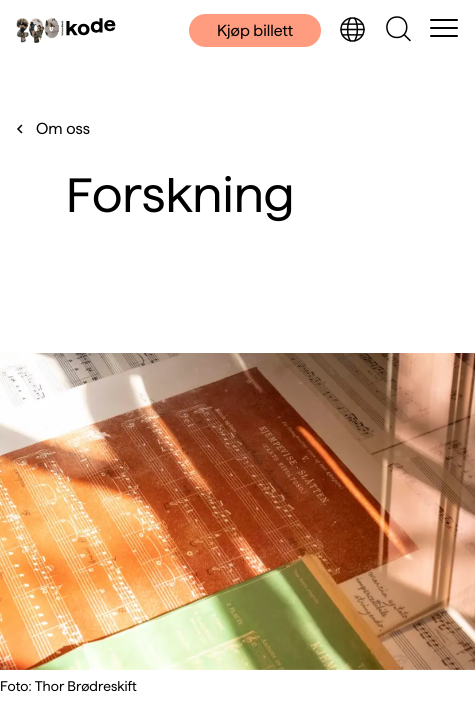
#include <cairo.h>
#include <math.h>
#include <stddef.h>


static void ink(cairo_t *ctx, unsigned color) {
    cairo_set_source_rgb(ctx, (color >> 16) / 255.0, (color >> 8 & 255) / 255.0, (color & 255) / 255.0);
}

static void round_path(cairo_t *ctx, double x, double y, double w, double h, double r) {
    cairo_new_sub_path(ctx);
    cairo_arc(ctx, x + w - r, y + h - r, r, 0, M_PI / 2);
    cairo_arc(ctx, x + r, y + h - r, r, M_PI / 2, M_PI);
    cairo_arc(ctx, x + r, y + r, r, M_PI, 1.5 * M_PI);
    cairo_arc(ctx, x + w - r, y + r, r, 1.5 * M_PI, 2 * M_PI);
    cairo_close_path(ctx);
}

static void paste(cairo_t *ctx, const char *path, double x, double y, double w, double h) {
    cairo_surface_t *image = cairo_image_surface_create_from_png(path);
    cairo_save(ctx);
    cairo_set_source_surface(ctx, image, x, y);
    cairo_rectangle(ctx, x, y, w, h);
    cairo_fill(ctx);
    cairo_restore(ctx);
    cairo_surface_destroy(image);
}

int main(void) {
    cairo_surface_t *surface = cairo_image_surface_create(CAIRO_FORMAT_RGB24, 475, 703);
    cairo_t *ctx = cairo_create(surface);
    cairo_font_options_t *options = cairo_font_options_create();
    cairo_font_options_set_hint_metrics(options, CAIRO_HINT_METRICS_OFF);
    cairo_font_options_set_hint_style(options, CAIRO_HINT_STYLE_NONE);
    cairo_set_font_options(ctx, options);
    cairo_set_miter_limit(ctx, 4);
    ink(ctx, 0xFFFFFF);
    cairo_paint(ctx);
    paste(ctx, "media/1.png", 16, 18, 100, 25);
    ink(ctx, 0xFF9B7E);
    round_path(ctx, 189, 14, 132, 33, 16.5);
    cairo_fill(ctx);
    cairo_select_font_face(ctx, "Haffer", CAIRO_FONT_SLANT_NORMAL, CAIRO_FONT_WEIGHT_NORMAL);
    cairo_set_font_size(ctx, 16);
    ink(ctx, 0x000000);
    cairo_move_to(ctx, 217, 36);
    cairo_show_text(ctx, "Kjøp billett");
    paste(ctx, "media/2.png", 340, 17, 25, 25);
    cairo_new_path(ctx);
    cairo_move_to(ctx, 397, 37.5);
    cairo_curve_to(ctx, 410, 37.5, 410, 17, 397, 17);
    cairo_curve_to(ctx, 383.5, 17, 383.5, 37.5, 397, 37.5);
    cairo_close_path(ctx);
    cairo_move_to(ctx, 410, 40.5);
    cairo_line_to(ctx, 404, 34.5);
    cairo_set_line_width(ctx, 1.5);
    cairo_set_line_cap(ctx, CAIRO_LINE_CAP_ROUND);
    cairo_set_line_join(ctx, CAIRO_LINE_JOIN_ROUND);
    cairo_stroke(ctx);
    cairo_new_path(ctx);
    cairo_move_to(ctx, 431, 36);
    cairo_line_to(ctx, 457, 36);
    cairo_move_to(ctx, 431, 28);
    cairo_line_to(ctx, 457, 28);
    cairo_move_to(ctx, 431, 20);
    cairo_line_to(ctx, 457, 20);
    cairo_set_line_width(ctx, 2);
    cairo_stroke(ctx);
    paste(ctx, "media/3.png", 17, 124, 6, 10);
    cairo_move_to(ctx, 36, 134);
    cairo_show_text(ctx, "Om oss");
    cairo_select_font_face(ctx, "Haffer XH", CAIRO_FONT_SLANT_NORMAL, CAIRO_FONT_WEIGHT_NORMAL);
    cairo_set_font_size(ctx, 48);
    cairo_move_to(ctx, 66, 212);
    cairo_show_text(ctx, "Forskning");
    paste(ctx, "media/4.png", 0, 353, 475, 317);
    cairo_select_font_face(ctx, "Haffer", CAIRO_FONT_SLANT_NORMAL, CAIRO_FONT_WEIGHT_NORMAL);
    cairo_set_font_size(ctx, 14);
    cairo_move_to(ctx, 0, 691);
    cairo_show_text(ctx, "Foto: Thor Brødreskift");
    cairo_surface_write_to_png(surface, "image.png");
    cairo_font_options_destroy(options);
    cairo_destroy(ctx);
    cairo_surface_destroy(surface);
    return 0;
}
